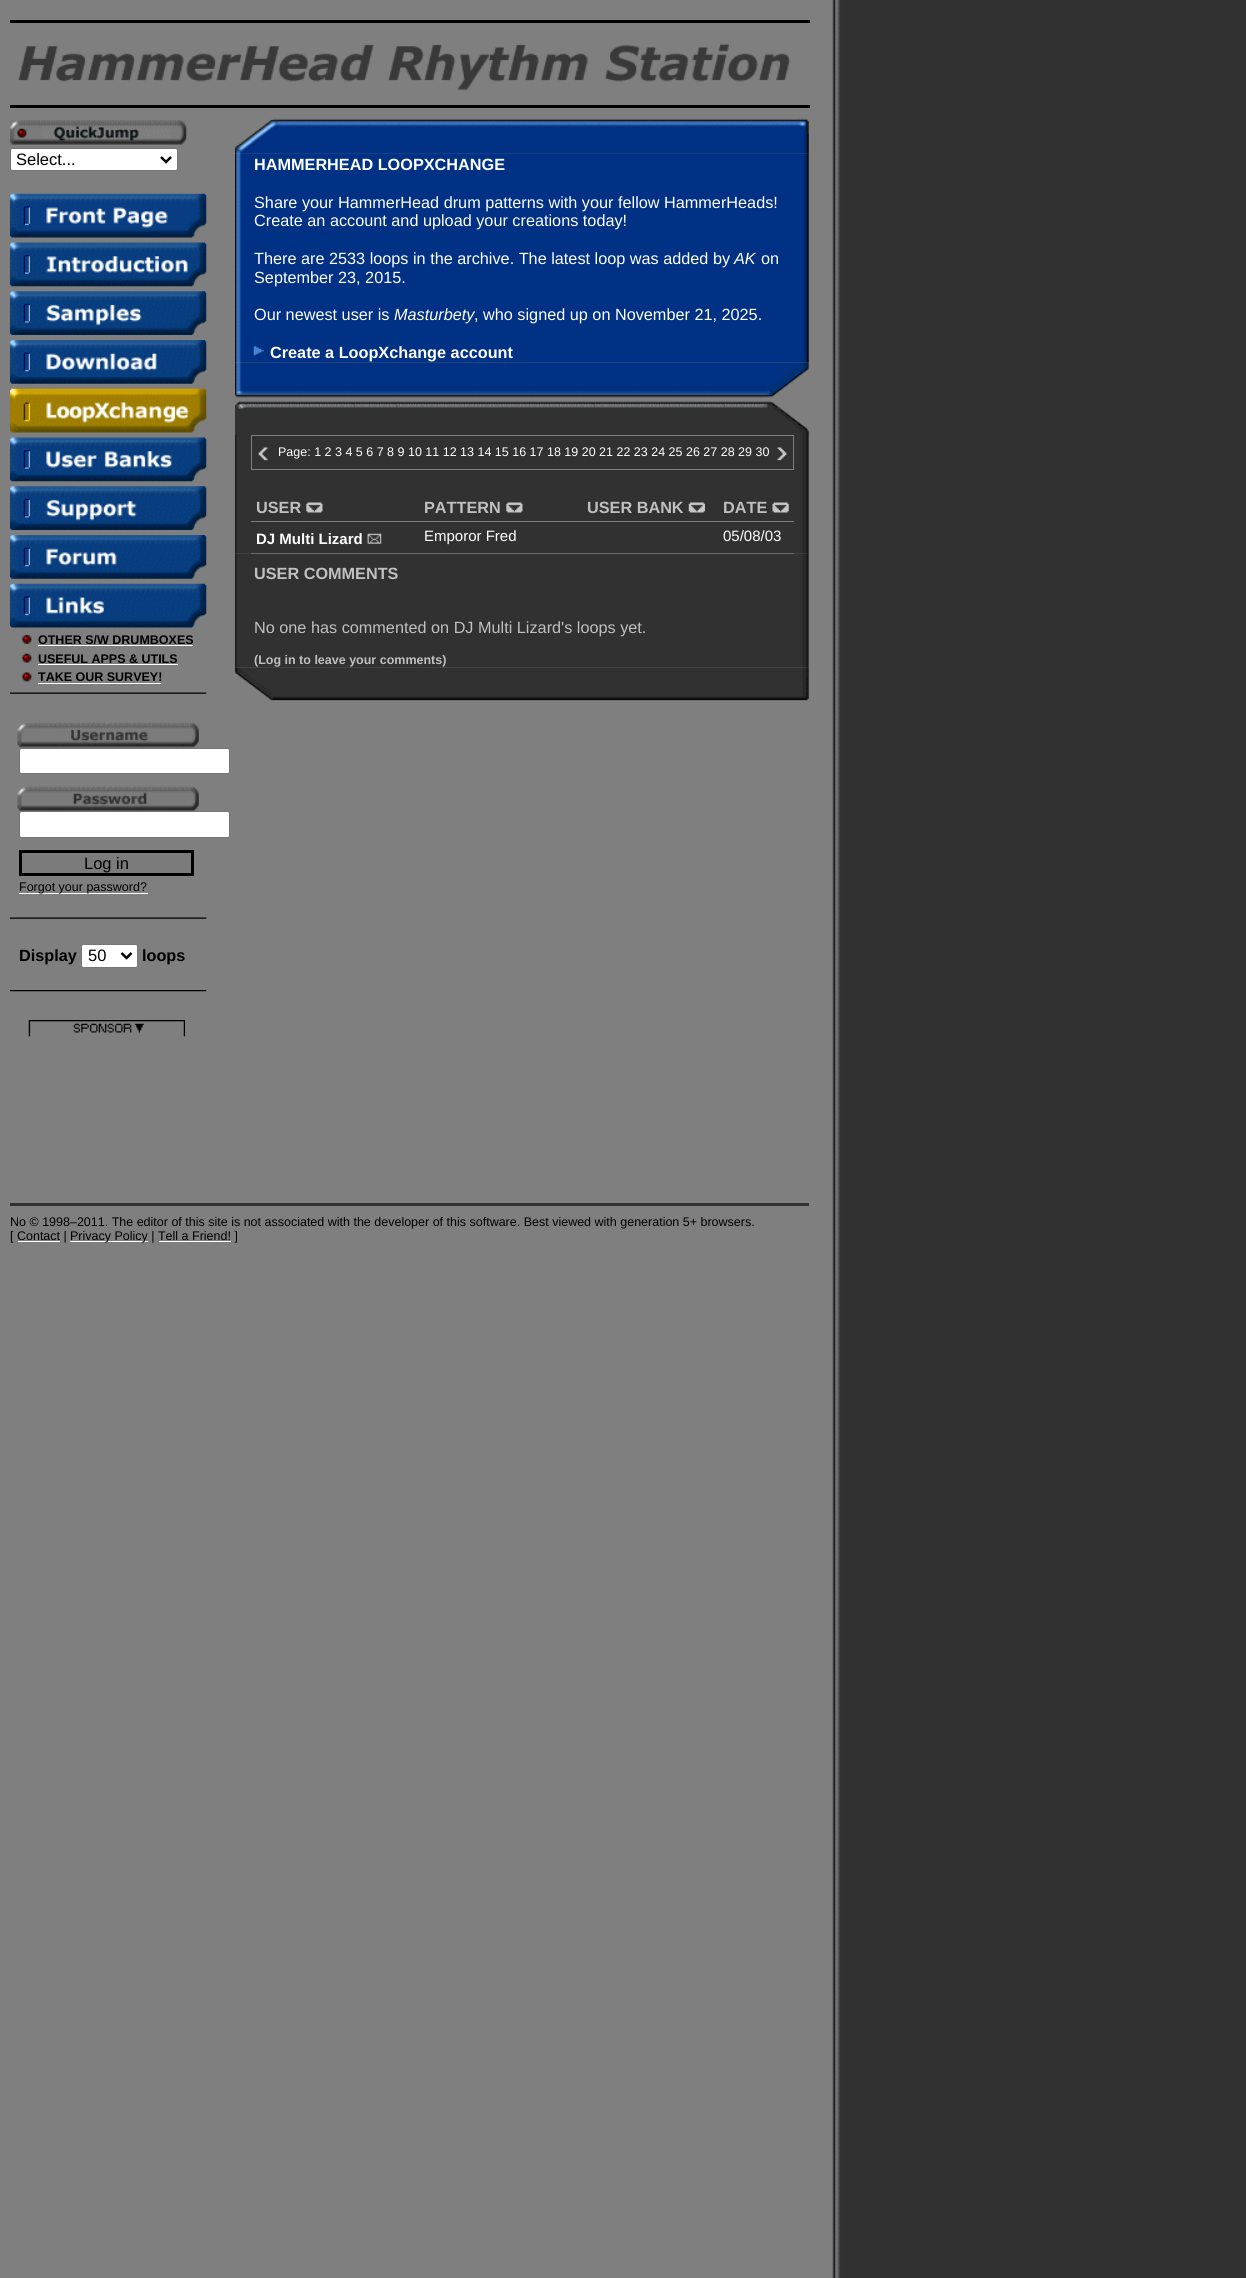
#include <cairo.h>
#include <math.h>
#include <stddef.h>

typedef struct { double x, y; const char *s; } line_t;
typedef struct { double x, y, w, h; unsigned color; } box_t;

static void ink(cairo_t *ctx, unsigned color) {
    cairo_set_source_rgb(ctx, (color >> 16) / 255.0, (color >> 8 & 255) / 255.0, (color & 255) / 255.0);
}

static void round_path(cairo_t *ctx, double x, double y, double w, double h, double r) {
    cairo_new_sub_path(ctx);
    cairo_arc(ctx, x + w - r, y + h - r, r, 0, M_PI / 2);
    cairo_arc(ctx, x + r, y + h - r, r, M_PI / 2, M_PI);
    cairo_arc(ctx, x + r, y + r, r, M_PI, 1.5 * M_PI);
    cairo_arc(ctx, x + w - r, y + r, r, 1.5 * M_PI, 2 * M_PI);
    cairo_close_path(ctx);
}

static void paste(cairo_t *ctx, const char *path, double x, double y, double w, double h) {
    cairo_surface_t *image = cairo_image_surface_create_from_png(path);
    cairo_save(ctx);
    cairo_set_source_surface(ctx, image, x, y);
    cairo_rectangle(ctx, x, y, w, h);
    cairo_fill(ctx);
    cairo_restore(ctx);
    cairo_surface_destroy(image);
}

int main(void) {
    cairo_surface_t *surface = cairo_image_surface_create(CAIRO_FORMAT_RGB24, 1246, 2278);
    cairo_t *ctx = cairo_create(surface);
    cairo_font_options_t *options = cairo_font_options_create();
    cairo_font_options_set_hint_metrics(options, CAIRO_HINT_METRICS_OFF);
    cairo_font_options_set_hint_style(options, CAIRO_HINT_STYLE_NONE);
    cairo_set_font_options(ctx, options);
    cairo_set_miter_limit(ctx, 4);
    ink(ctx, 0x7F7F7F);
    cairo_paint(ctx);
    paste(ctx, "media/1.png", 832, 0, 414, 2278);
    ink(ctx, 0x000000);
    cairo_rectangle(ctx, 10, 20, 800, 3);
    cairo_fill(ctx);
    paste(ctx, "media/2.png", 18, 43, 772, 48);
    cairo_rectangle(ctx, 10, 105, 800, 3);
    cairo_fill(ctx);
    paste(ctx, "media/3.png", 10, 120, 177, 25);
    ink(ctx, 0xFFFFFF);
    round_path(ctx, 10.5, 148.5, 167, 22, 2);
    cairo_fill_preserve(ctx);
    ink(ctx, 0x767676);
    cairo_set_line_width(ctx, 1);
    cairo_stroke(ctx);
    cairo_new_path(ctx);
    cairo_move_to(ctx, 161, 157);
    cairo_line_to(ctx, 166, 162);
    cairo_line_to(ctx, 171, 157);
    ink(ctx, 0x000000);
    cairo_set_line_width(ctx, 2.5);
    cairo_stroke(ctx);
    cairo_select_font_face(ctx, "Liberation Sans", CAIRO_FONT_SLANT_NORMAL, CAIRO_FONT_WEIGHT_NORMAL);
    cairo_set_font_size(ctx, 16.5);
    cairo_move_to(ctx, 16, 165);
    cairo_show_text(ctx, "Select...");
    paste(ctx, "media/4.png", 10, 193, 20, 45);
    paste(ctx, "media/5.png", 30, 193, 177, 45);
    paste(ctx, "media/6.png", 10, 242, 20, 45);
    paste(ctx, "media/7.png", 30, 242, 177, 45);
    paste(ctx, "media/8.png", 10, 291, 20, 44);
    paste(ctx, "media/9.png", 30, 291, 177, 44);
    paste(ctx, "media/10.png", 10, 340, 20, 44);
    paste(ctx, "media/11.png", 30, 340, 177, 44);
    paste(ctx, "media/12.png", 10, 388, 20, 45);
    paste(ctx, "media/13.png", 30, 388, 177, 45);
    paste(ctx, "media/6.png", 10, 437, 20, 45);
    paste(ctx, "media/14.png", 30, 437, 177, 45);
    paste(ctx, "media/15.png", 10, 486, 20, 44);
    paste(ctx, "media/16.png", 30, 486, 177, 44);
    paste(ctx, "media/10.png", 10, 535, 20, 44);
    paste(ctx, "media/17.png", 30, 535, 177, 44);
    paste(ctx, "media/18.png", 10, 583, 20, 45);
    paste(ctx, "media/19.png", 30, 583, 177, 45);
    paste(ctx, "media/20.png", 22, 634, 10, 10);
    cairo_select_font_face(ctx, "Liberation Sans", CAIRO_FONT_SLANT_NORMAL, CAIRO_FONT_WEIGHT_BOLD);
    cairo_set_font_size(ctx, 12.5);
    cairo_move_to(ctx, 38, 644);
    cairo_show_text(ctx, "OTHER S/W DRUMBOXES");
    ink(ctx, 0xFFFFFF);
    cairo_rectangle(ctx, 38, 645, 155, 1);
    cairo_fill(ctx);
    paste(ctx, "media/21.png", 22, 653, 10, 10);
    ink(ctx, 0x000000);
    cairo_move_to(ctx, 38, 663);
    cairo_show_text(ctx, "USEFUL APPS & UTILS");
    ink(ctx, 0xFFFFFF);
    cairo_rectangle(ctx, 38, 664, 140, 1);
    cairo_fill(ctx);
    paste(ctx, "media/22.png", 22, 672, 10, 10);
    ink(ctx, 0x000000);
    cairo_move_to(ctx, 38, 681);
    cairo_show_text(ctx, "TAKE OUR SURVEY!");
    ink(ctx, 0xFFFFFF);
    cairo_rectangle(ctx, 38, 683, 123, 1);
    cairo_fill(ctx);
    paste(ctx, "media/23.png", 10, 692, 197, 2);
    paste(ctx, "media/24.png", 17, 722, 182, 26);
    round_path(ctx, 19.5, 748.5, 210, 25, 2);
    cairo_fill_preserve(ctx);
    ink(ctx, 0x767676);
    cairo_set_line_width(ctx, 1);
    cairo_stroke(ctx);
    paste(ctx, "media/25.png", 17, 786, 182, 26);
    ink(ctx, 0xFFFFFF);
    round_path(ctx, 19.5, 811.5, 210, 26, 2);
    cairo_fill_preserve(ctx);
    ink(ctx, 0x767676);
    cairo_stroke(ctx);
    ink(ctx, 0x7B7B7B);
    cairo_rectangle(ctx, 20.5, 851.5, 172, 23);
    cairo_fill_preserve(ctx);
    ink(ctx, 0x000000);
    cairo_set_line_width(ctx, 3);
    cairo_stroke(ctx);
    cairo_select_font_face(ctx, "Liberation Sans", CAIRO_FONT_SLANT_NORMAL, CAIRO_FONT_WEIGHT_NORMAL);
    cairo_set_font_size(ctx, 16.5);
    cairo_move_to(ctx, 84, 869);
    cairo_show_text(ctx, "Log in");
    ink(ctx, 0xFFFFFF);
    cairo_rectangle(ctx, 19, 893, 129, 1);
    cairo_fill(ctx);
    cairo_set_font_size(ctx, 12.5);
    ink(ctx, 0x000000);
    cairo_move_to(ctx, 19, 891);
    cairo_show_text(ctx, "Forgot your password?");
    paste(ctx, "media/23.png", 10, 917, 197, 2);
    cairo_select_font_face(ctx, "Liberation Sans", CAIRO_FONT_SLANT_NORMAL, CAIRO_FONT_WEIGHT_BOLD);
    cairo_set_font_size(ctx, 16.25);
    cairo_move_to(ctx, 19, 961);
    cairo_show_text(ctx, "Display");
    ink(ctx, 0xFFFFFF);
    round_path(ctx, 81.5, 944.5, 56, 23, 2);
    cairo_fill_preserve(ctx);
    ink(ctx, 0x767676);
    cairo_set_line_width(ctx, 1);
    cairo_stroke(ctx);
    cairo_new_path(ctx);
    cairo_move_to(ctx, 121.5, 953);
    cairo_line_to(ctx, 126.5, 958);
    cairo_line_to(ctx, 131.5, 953);
    ink(ctx, 0x000000);
    cairo_set_line_width(ctx, 2.5);
    cairo_stroke(ctx);
    cairo_select_font_face(ctx, "Liberation Sans", CAIRO_FONT_SLANT_NORMAL, CAIRO_FONT_WEIGHT_NORMAL);
    cairo_set_font_size(ctx, 16.5);
    cairo_move_to(ctx, 88, 961);
    cairo_show_text(ctx, "50");
    cairo_select_font_face(ctx, "Liberation Sans", CAIRO_FONT_SLANT_NORMAL, CAIRO_FONT_WEIGHT_BOLD);
    cairo_set_font_size(ctx, 16.25);
    cairo_move_to(ctx, 142, 961);
    cairo_show_text(ctx, "loops");
    paste(ctx, "media/26.png", 10, 990, 197, 2);
    paste(ctx, "media/27.png", 28, 1020, 157, 17);
    paste(ctx, "media/29.png", 235, 153, 574, 210);
    paste(ctx, "media/28.png", 235, 118, 574, 36);
    ink(ctx, 0xFFFFFF);
    cairo_move_to(ctx, 254, 170);
    cairo_show_text(ctx, "HAMMERHEAD LOOPXCHANGE");
    cairo_select_font_face(ctx, "Liberation Sans", CAIRO_FONT_SLANT_NORMAL, CAIRO_FONT_WEIGHT_NORMAL);
    {
        static const line_t items[] = {
            {254, 208, "Share your HammerHead drum patterns with your fellow HammerHeads!"},
            {254, 226, "Create an account and upload your creations today!"},
            {254, 264, "There are 2533 loops in the archive. The latest loop was added by"},
        };
        for (size_t i = 0; i < sizeof items / sizeof *items; i++) {
            cairo_move_to(ctx, items[i].x, items[i].y);
            cairo_show_text(ctx, items[i].s);
        }
    }
    cairo_select_font_face(ctx, "Liberation Sans", CAIRO_FONT_SLANT_ITALIC, CAIRO_FONT_WEIGHT_NORMAL);
    cairo_move_to(ctx, 734, 264);
    cairo_show_text(ctx, "AK");
    cairo_select_font_face(ctx, "Liberation Sans", CAIRO_FONT_SLANT_NORMAL, CAIRO_FONT_WEIGHT_NORMAL);
    {
        static const line_t items[] = {
            {761, 264, "on"},
            {254, 283, "September 23, 2015."},
            {254, 320, "Our newest user is"},
        };
        for (size_t i = 0; i < sizeof items / sizeof *items; i++) {
            cairo_move_to(ctx, items[i].x, items[i].y);
            cairo_show_text(ctx, items[i].s);
        }
    }
    cairo_select_font_face(ctx, "Liberation Sans", CAIRO_FONT_SLANT_ITALIC, CAIRO_FONT_WEIGHT_NORMAL);
    cairo_move_to(ctx, 394, 320);
    cairo_show_text(ctx, "Masturbety");
    cairo_select_font_face(ctx, "Liberation Sans", CAIRO_FONT_SLANT_NORMAL, CAIRO_FONT_WEIGHT_NORMAL);
    cairo_move_to(ctx, 474, 320);
    cairo_show_text(ctx, ", who signed up on November 21, 2025.");
    paste(ctx, "media/30.png", 253, 346, 11, 10);
    cairo_select_font_face(ctx, "Liberation Sans", CAIRO_FONT_SLANT_NORMAL, CAIRO_FONT_WEIGHT_BOLD);
    cairo_move_to(ctx, 270, 358);
    cairo_show_text(ctx, "Create a LoopXchange account");
    paste(ctx, "media/31.png", 235, 362, 574, 36);
    paste(ctx, "media/32.png", 235, 401, 574, 34);
    paste(ctx, "media/33.png", 235, 435, 574, 119);
    {
        static const box_t items[] = {
            {251, 435, 543, 1, 0x7F7F7F},
            {251, 553, 543, 1, 0x7F7F7F},
            {793, 436, 1, 34, 0x7F7F7F},
            {251, 469, 543, 1, 0x7F7F7F},
            {251, 436, 1, 34, 0x7F7F7F},
        };
        for (size_t i = 0; i < sizeof items / sizeof *items; i++) {
            ink(ctx, items[i].color);
            cairo_rectangle(ctx, items[i].x, items[i].y, items[i].w, items[i].h);
            cairo_fill(ctx);
        }
    }
    paste(ctx, "media/34.png", 258, 447, 10, 14);
    cairo_select_font_face(ctx, "Liberation Sans", CAIRO_FONT_SLANT_NORMAL, CAIRO_FONT_WEIGHT_NORMAL);
    cairo_set_font_size(ctx, 12.5);
    ink(ctx, 0xFFFFFF);
    cairo_move_to(ctx, 278, 456);
    cairo_show_text(ctx, "Page: 1 2 3 4 5 6 7 8 9 10 11 12 13 14 15 16 17 18 19 20 21 22 23 24 25 26 27 28 29 30");
    paste(ctx, "media/35.png", 773, 447, 14, 14);
    cairo_select_font_face(ctx, "Liberation Sans", CAIRO_FONT_SLANT_NORMAL, CAIRO_FONT_WEIGHT_BOLD);
    cairo_set_font_size(ctx, 16.25);
    ink(ctx, 0xC0C0C0);
    cairo_move_to(ctx, 256, 513);
    cairo_show_text(ctx, "USER");
    paste(ctx, "media/36.png", 306, 502, 17, 11);
    cairo_move_to(ctx, 424, 513);
    cairo_show_text(ctx, "PATTERN");
    paste(ctx, "media/36.png", 506, 502, 17, 11);
    cairo_move_to(ctx, 587, 513);
    cairo_show_text(ctx, "USER BANK");
    paste(ctx, "media/37.png", 688, 502, 17, 11);
    cairo_move_to(ctx, 723, 513);
    cairo_show_text(ctx, "DATE");
    paste(ctx, "media/38.png", 772, 502, 17, 11);
    ink(ctx, 0x7F7F7F);
    cairo_rectangle(ctx, 251, 521, 543, 1);
    cairo_fill(ctx);
    cairo_set_font_size(ctx, 15);
    ink(ctx, 0xFFFFFF);
    cairo_move_to(ctx, 256, 544);
    cairo_show_text(ctx, "DJ Multi Lizard");
    paste(ctx, "media/39.png", 367, 533, 15, 11);
    cairo_select_font_face(ctx, "Liberation Sans", CAIRO_FONT_SLANT_NORMAL, CAIRO_FONT_WEIGHT_NORMAL);
    cairo_move_to(ctx, 424, 541);
    cairo_show_text(ctx, "Emporor Fred");
    cairo_move_to(ctx, 723, 541);
    cairo_show_text(ctx, "05/08/03");
    paste(ctx, "media/40.png", 235, 553, 574, 115);
    cairo_select_font_face(ctx, "Liberation Sans", CAIRO_FONT_SLANT_NORMAL, CAIRO_FONT_WEIGHT_BOLD);
    cairo_set_font_size(ctx, 16.25);
    ink(ctx, 0xC0C0C0);
    cairo_move_to(ctx, 254, 579);
    cairo_show_text(ctx, "USER COMMENTS");
    cairo_select_font_face(ctx, "Liberation Sans", CAIRO_FONT_SLANT_NORMAL, CAIRO_FONT_WEIGHT_NORMAL);
    cairo_move_to(ctx, 254, 633);
    cairo_show_text(ctx, "No one has commented on DJ Multi Lizard's loops yet.");
    cairo_select_font_face(ctx, "Liberation Sans", CAIRO_FONT_SLANT_NORMAL, CAIRO_FONT_WEIGHT_BOLD);
    cairo_set_font_size(ctx, 12.5);
    cairo_move_to(ctx, 254, 664);
    cairo_show_text(ctx, "(Log in to leave your comments)");
    paste(ctx, "media/41.png", 235, 667, 574, 34);
    ink(ctx, 0x313131);
    cairo_rectangle(ctx, 10, 1203, 799, 3);
    cairo_fill(ctx);
    cairo_select_font_face(ctx, "Liberation Sans", CAIRO_FONT_SLANT_NORMAL, CAIRO_FONT_WEIGHT_NORMAL);
    ink(ctx, 0x000000);
    cairo_move_to(ctx, 10, 1226);
    cairo_show_text(ctx, "No © 1998–2011. The editor of this site is not associated with the developer of this software. Best viewed with generation 5+ browsers.");
    cairo_move_to(ctx, 10, 1240);
    cairo_show_text(ctx, "[ Contact |");
    ink(ctx, 0xFFFFFF);
    cairo_rectangle(ctx, 18, 1241, 42, 1);
    cairo_fill(ctx);
    cairo_rectangle(ctx, 70, 1241, 78, 1);
    cairo_fill(ctx);
    ink(ctx, 0x000000);
    cairo_move_to(ctx, 70, 1240);
    cairo_show_text(ctx, "Privacy Policy | Tell a Friend! ]");
    ink(ctx, 0xFFFFFF);
    cairo_rectangle(ctx, 159, 1241, 72, 1);
    cairo_fill(ctx);
    cairo_surface_write_to_png(surface, "image.png");
    cairo_font_options_destroy(options);
    cairo_destroy(ctx);
    cairo_surface_destroy(surface);
    return 0;
}
